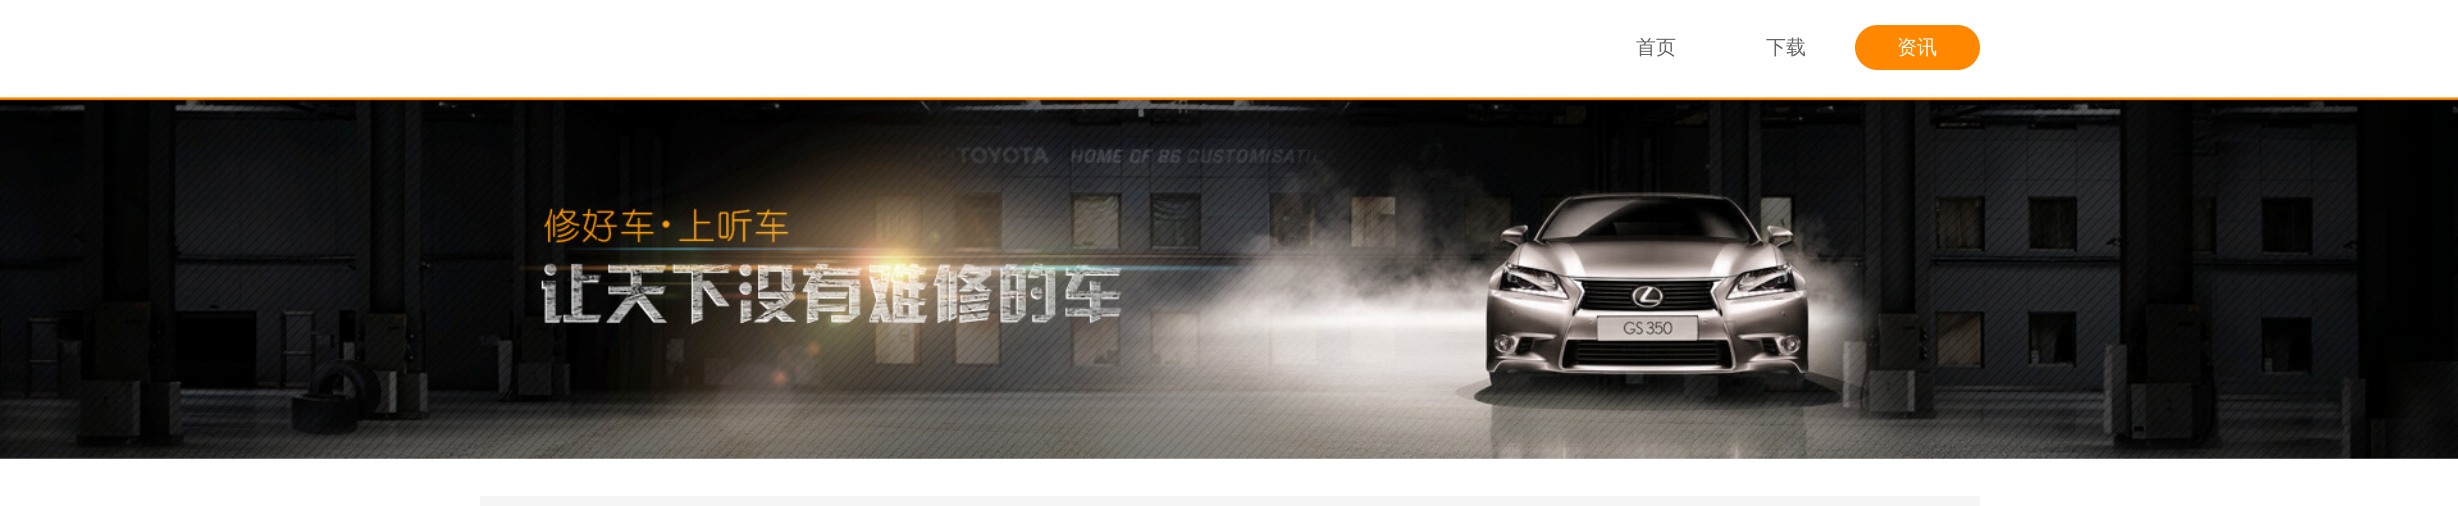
#include <cairo.h>
#include <math.h>
#include <stddef.h>


static void ink(cairo_t *ctx, unsigned color) {
    cairo_set_source_rgb(ctx, (color >> 16) / 255.0, (color >> 8 & 255) / 255.0, (color & 255) / 255.0);
}

static void round_path(cairo_t *ctx, double x, double y, double w, double h, double r) {
    cairo_new_sub_path(ctx);
    cairo_arc(ctx, x + w - r, y + h - r, r, 0, M_PI / 2);
    cairo_arc(ctx, x + r, y + h - r, r, M_PI / 2, M_PI);
    cairo_arc(ctx, x + r, y + r, r, M_PI, 1.5 * M_PI);
    cairo_arc(ctx, x + w - r, y + r, r, 1.5 * M_PI, 2 * M_PI);
    cairo_close_path(ctx);
}

static void paste(cairo_t *ctx, const char *path, double x, double y, double w, double h) {
    cairo_surface_t *image = cairo_image_surface_create_from_png(path);
    cairo_save(ctx);
    cairo_set_source_surface(ctx, image, x, y);
    cairo_rectangle(ctx, x, y, w, h);
    cairo_fill(ctx);
    cairo_restore(ctx);
    cairo_surface_destroy(image);
}

int main(void) {
    cairo_surface_t *surface = cairo_image_surface_create(CAIRO_FORMAT_RGB24, 2458, 506);
    cairo_t *ctx = cairo_create(surface);
    cairo_font_options_t *options = cairo_font_options_create();
    cairo_font_options_set_hint_metrics(options, CAIRO_HINT_METRICS_OFF);
    cairo_font_options_set_hint_style(options, CAIRO_HINT_STYLE_NONE);
    cairo_set_font_options(ctx, options);
    cairo_set_miter_limit(ctx, 4);
    ink(ctx, 0xFFFFFF);
    cairo_paint(ctx);
    cairo_select_font_face(ctx, "WenQuanYi Zen Hei Medium", CAIRO_FONT_SLANT_NORMAL, CAIRO_FONT_WEIGHT_NORMAL);
    cairo_set_font_size(ctx, 20);
    ink(ctx, 0x666666);
    cairo_move_to(ctx, 1636, 54);
    cairo_show_text(ctx, "首页");
    cairo_move_to(ctx, 1766, 54);
    cairo_show_text(ctx, "下载");
    ink(ctx, 0xFF8800);
    round_path(ctx, 1855, 25, 125, 45, 22.5);
    cairo_fill(ctx);
    ink(ctx, 0xFFFFFF);
    cairo_move_to(ctx, 1897, 54);
    cairo_show_text(ctx, "资讯");
    paste(ctx, "media/1.png", 0, 93, 2458, 366);
    ink(ctx, 0xF5F5F5);
    cairo_rectangle(ctx, 480, 496, 1500, 10);
    cairo_fill(ctx);
    cairo_surface_write_to_png(surface, "image.png");
    cairo_font_options_destroy(options);
    cairo_destroy(ctx);
    cairo_surface_destroy(surface);
    return 0;
}
